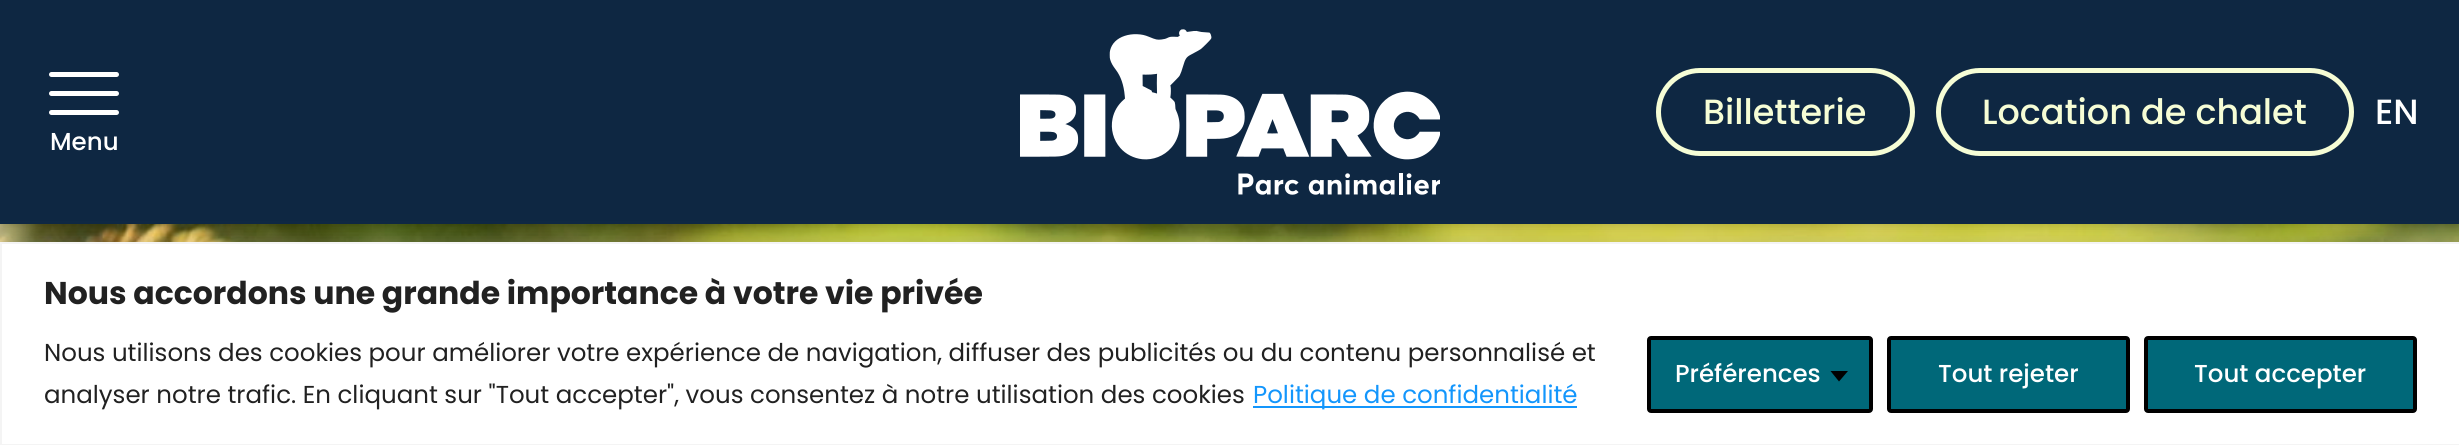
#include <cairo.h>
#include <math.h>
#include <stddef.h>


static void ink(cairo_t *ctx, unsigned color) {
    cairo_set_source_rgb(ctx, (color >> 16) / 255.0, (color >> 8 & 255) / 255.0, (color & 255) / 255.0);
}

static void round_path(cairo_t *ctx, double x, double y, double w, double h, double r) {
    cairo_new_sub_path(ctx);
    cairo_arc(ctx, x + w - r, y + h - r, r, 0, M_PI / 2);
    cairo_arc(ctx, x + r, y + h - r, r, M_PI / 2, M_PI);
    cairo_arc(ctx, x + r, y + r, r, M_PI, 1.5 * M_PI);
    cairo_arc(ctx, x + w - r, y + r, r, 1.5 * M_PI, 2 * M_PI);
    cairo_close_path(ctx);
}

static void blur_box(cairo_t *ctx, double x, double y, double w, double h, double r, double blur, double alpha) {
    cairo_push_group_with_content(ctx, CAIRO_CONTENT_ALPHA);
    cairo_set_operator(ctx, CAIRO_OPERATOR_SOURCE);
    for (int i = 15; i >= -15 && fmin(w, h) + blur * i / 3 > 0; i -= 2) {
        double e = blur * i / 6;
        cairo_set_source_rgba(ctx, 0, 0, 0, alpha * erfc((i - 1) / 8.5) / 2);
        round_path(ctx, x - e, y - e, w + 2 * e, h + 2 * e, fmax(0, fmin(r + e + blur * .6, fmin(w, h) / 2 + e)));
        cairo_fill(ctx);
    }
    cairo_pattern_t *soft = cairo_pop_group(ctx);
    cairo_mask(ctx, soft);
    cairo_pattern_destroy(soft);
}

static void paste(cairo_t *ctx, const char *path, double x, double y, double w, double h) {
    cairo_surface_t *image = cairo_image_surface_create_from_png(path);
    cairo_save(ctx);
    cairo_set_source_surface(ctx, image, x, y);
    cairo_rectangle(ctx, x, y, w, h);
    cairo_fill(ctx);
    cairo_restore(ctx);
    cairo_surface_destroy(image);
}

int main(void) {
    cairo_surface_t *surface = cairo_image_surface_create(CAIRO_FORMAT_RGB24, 2459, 445);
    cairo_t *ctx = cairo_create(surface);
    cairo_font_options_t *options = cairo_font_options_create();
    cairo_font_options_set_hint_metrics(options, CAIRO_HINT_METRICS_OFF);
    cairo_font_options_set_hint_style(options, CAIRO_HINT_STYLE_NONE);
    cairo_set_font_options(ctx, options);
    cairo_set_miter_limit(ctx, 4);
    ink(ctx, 0xFFFFFF);
    cairo_paint(ctx);
    paste(ctx, "media/2.png", 0, 224, 2459, 18);
    ink(ctx, 0x000000);
    blur_box(ctx, 4, 7, 2453, 217, 0, 3.5, 0.1);
    blur_box(ctx, 2, 9, 2457, 220, 0, 5, 0.1);
    ink(ctx, 0x0E2742);
    cairo_rectangle(ctx, 0, 0, 2459, 224);
    cairo_fill(ctx);
    paste(ctx, "media/1.png", 1020, 29, 420, 166);
    round_path(ctx, 1658.5, 70.5, 254, 83, 41.5);
    ink(ctx, 0xF6FDD5);
    cairo_set_line_width(ctx, 5);
    cairo_stroke(ctx);
    cairo_select_font_face(ctx, "Poppins Medium", CAIRO_FONT_SLANT_NORMAL, CAIRO_FONT_WEIGHT_NORMAL);
    cairo_set_font_size(ctx, 35);
    cairo_move_to(ctx, 1703, 124);
    cairo_show_text(ctx, "Billetterie");
    round_path(ctx, 1938.5, 70.5, 413, 83, 41.5);
    cairo_stroke(ctx);
    cairo_move_to(ctx, 1982, 124);
    cairo_show_text(ctx, "Location de chalet");
    ink(ctx, 0xFFFFFF);
    cairo_move_to(ctx, 2375, 124);
    cairo_show_text(ctx, "EN");
    round_path(ctx, 49, 91, 70, 5, 2.5);
    cairo_fill(ctx);
    round_path(ctx, 49, 72, 70, 5, 2.5);
    cairo_fill(ctx);
    round_path(ctx, 49, 110, 70, 5, 2.5);
    cairo_fill(ctx);
    cairo_set_font_size(ctx, 24.5);
    cairo_move_to(ctx, 50, 150);
    cairo_show_text(ctx, "Menu");
    ink(ctx, 0xACABAB);
    blur_box(ctx, 0, 240, 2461, 205, 0, 9, 0.3);
    ink(ctx, 0xFFFFFF);
    cairo_rectangle(ctx, 1, 243, 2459, 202);
    cairo_fill_preserve(ctx);
    ink(ctx, 0xF4F4F4);
    cairo_set_line_width(ctx, 2);
    cairo_stroke(ctx);
    cairo_select_font_face(ctx, "Poppins", CAIRO_FONT_SLANT_NORMAL, CAIRO_FONT_WEIGHT_BOLD);
    cairo_set_font_size(ctx, 31.5);
    ink(ctx, 0x212121);
    cairo_move_to(ctx, 44, 304);
    cairo_show_text(ctx, "Nous accordons une grande importance à votre vie privée");
    cairo_select_font_face(ctx, "Poppins", CAIRO_FONT_SLANT_NORMAL, CAIRO_FONT_WEIGHT_NORMAL);
    cairo_set_font_size(ctx, 24.5);
    cairo_move_to(ctx, 44, 361);
    cairo_show_text(ctx, "Nous utilisons des cookies pour améliorer votre expérience de navigation, diffuser des publicités ou du contenu personnalisé et");
    cairo_move_to(ctx, 44, 403);
    cairo_show_text(ctx, "analyser notre trafic. En cliquant sur \"Tout accepter\", vous consentez à notre utilisation des cookies");
    ink(ctx, 0x1396FC);
    cairo_rectangle(ctx, 1253, 406, 324, 2);
    cairo_fill(ctx);
    cairo_move_to(ctx, 1253, 403);
    cairo_show_text(ctx, "Politique de confidentialité");
    ink(ctx, 0x006879);
    round_path(ctx, 1649, 338, 222, 73, 2);
    cairo_fill_preserve(ctx);
    ink(ctx, 0x000000);
    cairo_set_line_width(ctx, 4);
    cairo_stroke(ctx);
    cairo_select_font_face(ctx, "Poppins Medium", CAIRO_FONT_SLANT_NORMAL, CAIRO_FONT_WEIGHT_NORMAL);
    ink(ctx, 0xFFFFFF);
    cairo_move_to(ctx, 1675, 382);
    cairo_show_text(ctx, "Préférences");
    ink(ctx, 0x000000);
    cairo_new_path(ctx);
    cairo_move_to(ctx, 1830.5, 371);
    cairo_line_to(ctx, 1848, 371);
    cairo_line_to(ctx, 1839, 381.5);
    cairo_close_path(ctx);
    cairo_fill(ctx);
    ink(ctx, 0x006879);
    round_path(ctx, 1889, 338, 239, 73, 2);
    cairo_fill_preserve(ctx);
    ink(ctx, 0x000000);
    cairo_stroke(ctx);
    ink(ctx, 0xFFFFFF);
    cairo_move_to(ctx, 1938, 382);
    cairo_show_text(ctx, "Tout rejeter");
    ink(ctx, 0x006879);
    round_path(ctx, 2146, 338, 269, 73, 2);
    cairo_fill_preserve(ctx);
    ink(ctx, 0x000000);
    cairo_stroke(ctx);
    ink(ctx, 0xFFFFFF);
    cairo_move_to(ctx, 2194, 382);
    cairo_show_text(ctx, "Tout accepter");
    cairo_surface_write_to_png(surface, "image.png");
    cairo_font_options_destroy(options);
    cairo_destroy(ctx);
    cairo_surface_destroy(surface);
    return 0;
}
